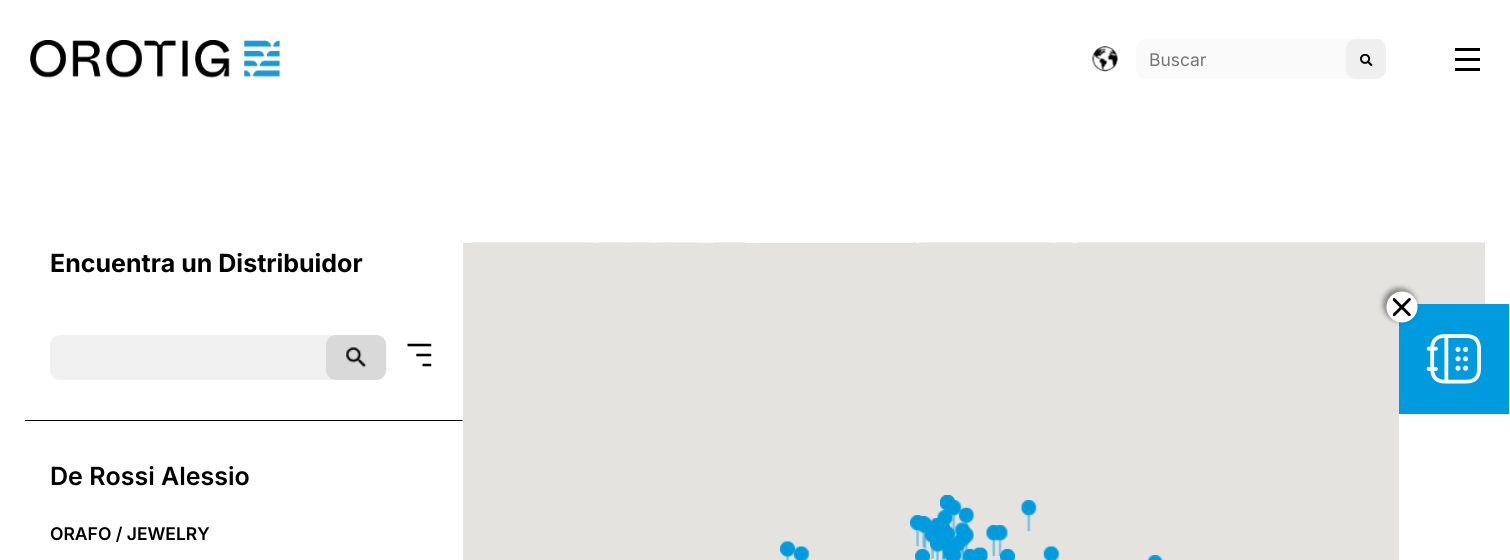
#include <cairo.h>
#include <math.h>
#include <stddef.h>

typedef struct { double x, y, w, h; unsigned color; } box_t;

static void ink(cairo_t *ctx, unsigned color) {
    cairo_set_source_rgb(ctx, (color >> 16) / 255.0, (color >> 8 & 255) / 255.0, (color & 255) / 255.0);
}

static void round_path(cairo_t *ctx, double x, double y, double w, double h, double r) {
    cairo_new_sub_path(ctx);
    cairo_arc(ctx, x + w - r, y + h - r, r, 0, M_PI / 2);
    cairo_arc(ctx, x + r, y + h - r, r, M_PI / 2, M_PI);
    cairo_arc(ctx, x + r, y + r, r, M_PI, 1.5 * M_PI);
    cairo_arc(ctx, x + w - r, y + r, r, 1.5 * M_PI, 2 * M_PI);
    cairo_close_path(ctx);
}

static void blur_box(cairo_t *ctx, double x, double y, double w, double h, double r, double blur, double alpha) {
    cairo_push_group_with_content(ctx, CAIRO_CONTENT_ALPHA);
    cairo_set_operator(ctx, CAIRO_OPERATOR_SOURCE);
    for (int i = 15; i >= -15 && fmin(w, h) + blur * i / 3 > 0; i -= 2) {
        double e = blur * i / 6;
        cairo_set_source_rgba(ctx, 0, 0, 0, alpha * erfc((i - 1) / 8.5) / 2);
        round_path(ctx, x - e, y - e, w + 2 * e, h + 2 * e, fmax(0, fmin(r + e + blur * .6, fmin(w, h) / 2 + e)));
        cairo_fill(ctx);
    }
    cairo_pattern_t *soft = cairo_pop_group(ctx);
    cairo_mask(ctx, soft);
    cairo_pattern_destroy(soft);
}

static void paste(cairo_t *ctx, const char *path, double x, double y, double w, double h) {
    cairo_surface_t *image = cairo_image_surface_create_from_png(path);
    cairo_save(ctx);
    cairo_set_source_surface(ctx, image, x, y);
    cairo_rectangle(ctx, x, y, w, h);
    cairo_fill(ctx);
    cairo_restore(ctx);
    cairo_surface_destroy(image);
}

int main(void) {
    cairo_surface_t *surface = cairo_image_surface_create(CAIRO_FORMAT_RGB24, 1510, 560);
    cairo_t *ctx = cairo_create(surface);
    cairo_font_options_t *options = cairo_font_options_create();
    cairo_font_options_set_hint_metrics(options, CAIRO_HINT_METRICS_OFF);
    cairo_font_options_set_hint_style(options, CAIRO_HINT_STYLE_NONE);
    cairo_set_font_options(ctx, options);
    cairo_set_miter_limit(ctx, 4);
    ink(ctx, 0xFFFFFF);
    cairo_paint(ctx);
    paste(ctx, "media/1.png", 30, 40, 250, 38);
    paste(ctx, "media/2.png", 1092, 46, 26, 26);
    ink(ctx, 0xFAFAFA);
    round_path(ctx, 1136, 39, 250, 40, 10);
    cairo_fill(ctx);
    cairo_select_font_face(ctx, "Inter", CAIRO_FONT_SLANT_NORMAL, CAIRO_FONT_WEIGHT_NORMAL);
    cairo_set_font_size(ctx, 17.5);
    ink(ctx, 0x757575);
    cairo_move_to(ctx, 1149, 66);
    cairo_show_text(ctx, "Buscar");
    ink(ctx, 0xEFEFEF);
    round_path(ctx, 1346, 39, 40, 40, 10);
    cairo_fill(ctx);
    paste(ctx, "media/3.png", 1360, 54, 13, 12);
    {
        static const box_t items[] = {
            {1455, 58, 25, 3, 0x000000},
            {1455, 48, 25, 3, 0x000000},
            {1455, 68, 25, 3, 0x000000},
            {25, 420, 438, 1, 0x000000},
        };
        for (size_t i = 0; i < sizeof items / sizeof *items; i++) {
            ink(ctx, items[i].color);
            cairo_rectangle(ctx, items[i].x, items[i].y, items[i].w, items[i].h);
            cairo_fill(ctx);
        }
    }
    paste(ctx, "media/8.png", 462, 242, 1023, 318);
    ink(ctx, 0xE5E3DF);
    cairo_rectangle(ctx, 463, 243, 1022, 317);
    cairo_fill(ctx);
    ink(ctx, 0x009ADE);
    cairo_new_path(ctx);
    cairo_move_to(ctx, 1399, 414);
    cairo_line_to(ctx, 1399, 314);
    cairo_curve_to(ctx, 1399, 308, 1403, 304, 1409, 304);
    cairo_line_to(ctx, 1509, 304);
    cairo_line_to(ctx, 1509, 414);
    cairo_close_path(ctx);
    cairo_fill(ctx);
    ink(ctx, 0x000000);
    blur_box(ctx, 1383, 288, 33, 33, 16.5, 2.5, 0.4);
    ink(ctx, 0xFFFFFF);
    cairo_new_path(ctx);
    cairo_move_to(ctx, 1386.5, 307);
    cairo_curve_to(ctx, 1386.5, 298.5, 1393.5, 291.5, 1402, 291.5);
    cairo_curve_to(ctx, 1410.5, 291.5, 1417.5, 298.5, 1417.5, 307);
    cairo_curve_to(ctx, 1417.5, 315.5, 1410.5, 322.5, 1402, 322.5);
    cairo_curve_to(ctx, 1393.5, 322.5, 1386.5, 315.5, 1386.5, 307);
    cairo_close_path(ctx);
    cairo_fill(ctx);
    paste(ctx, "media/4.png", 1392, 298, 19, 19);
    paste(ctx, "media/5.png", 1426, 334, 55, 50);
    cairo_new_path(ctx);
    cairo_move_to(ctx, 1399, 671);
    cairo_line_to(ctx, 1399, 414);
    cairo_line_to(ctx, 1509, 414);
    cairo_line_to(ctx, 1509, 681);
    cairo_line_to(ctx, 1409, 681);
    cairo_curve_to(ctx, 1403, 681, 1399, 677, 1399, 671);
    cairo_close_path(ctx);
    cairo_fill(ctx);
    cairo_select_font_face(ctx, "Inter", CAIRO_FONT_SLANT_NORMAL, CAIRO_FONT_WEIGHT_BOLD);
    cairo_set_font_size(ctx, 25);
    ink(ctx, 0x000000);
    cairo_move_to(ctx, 50, 272);
    cairo_show_text(ctx, "Encuentra un Distribuidor");
    ink(ctx, 0xF0F0F0);
    cairo_new_path(ctx);
    cairo_move_to(ctx, 60, 335);
    cairo_line_to(ctx, 339, 335);
    cairo_line_to(ctx, 339, 380);
    cairo_line_to(ctx, 60, 380);
    cairo_curve_to(ctx, 54.5, 380, 50, 375.5, 50, 370);
    cairo_line_to(ctx, 50, 345);
    cairo_curve_to(ctx, 50, 339.5, 54.5, 335, 60, 335);
    cairo_close_path(ctx);
    cairo_fill(ctx);
    ink(ctx, 0xD9D9D9);
    round_path(ctx, 326, 335, 60, 45, 10);
    cairo_fill(ctx);
    paste(ctx, "media/6.png", 346, 335, 41, 45);
    paste(ctx, "media/7.png", 407, 343, 25, 24);
    cairo_select_font_face(ctx, "Inter SemiBold", CAIRO_FONT_SLANT_NORMAL, CAIRO_FONT_WEIGHT_NORMAL);
    ink(ctx, 0x000000);
    cairo_move_to(ctx, 50, 485);
    cairo_show_text(ctx, "De Rossi Alessio");
    cairo_set_font_size(ctx, 17.5);
    cairo_move_to(ctx, 50, 540);
    cairo_show_text(ctx, "ORAFO / JEWELRY");
    paste(ctx, "media/9.png", 940, 495, 15, 31);
    paste(ctx, "media/10.png", 940, 495, 15, 31);
    paste(ctx, "media/11.png", 945, 500, 17, 32);
    paste(ctx, "media/12.png", 958, 507, 16, 20);
    paste(ctx, "media/13.png", 1020, 500, 17, 32);
    paste(ctx, "media/14.png", 910, 515, 15, 32);
    paste(ctx, "media/15.png", 937, 510, 16, 16);
    paste(ctx, "media/16.png", 918, 516, 14, 32);
    paste(ctx, "media/18.png", 930, 518, 15, 23);
    paste(ctx, "media/17.png", 918, 517, 14, 32);
    paste(ctx, "media/19.png", 954, 522, 16, 33);
    paste(ctx, "media/20.png", 935, 523, 15, 28);
    paste(ctx, "media/22.png", 994, 525, 14, 32);
    paste(ctx, "media/21.png", 986, 525, 13, 32);
    paste(ctx, "media/24.png", 940, 526, 15, 32);
    paste(ctx, "media/26.png", 936, 532, 15, 27);
    paste(ctx, "media/27.png", 936, 532, 14, 27);
    paste(ctx, "media/23.png", 925, 528, 14, 31);
    paste(ctx, "media/25.png", 958, 527, 16, 26);
    paste(ctx, "media/28.png", 954, 533, 16, 27);
    paste(ctx, "media/29.png", 780, 541, 15, 19);
    paste(ctx, "media/30.png", 936, 539, 16, 21);
    paste(ctx, "media/31.png", 950, 536, 15, 24);
    paste(ctx, "media/32.png", 794, 546, 15, 14);
    paste(ctx, "media/33.png", 930, 541, 15, 19);
    paste(ctx, "media/34.png", 942, 541, 16, 19);
    paste(ctx, "media/35.png", 973, 547, 15, 13);
    paste(ctx, "media/36.png", 1043, 546, 16, 14);
    paste(ctx, "media/37.png", 915, 548, 15, 12);
    paste(ctx, "media/38.png", 943, 550, 16, 10);
    paste(ctx, "media/40.png", 973, 547, 15, 13);
    paste(ctx, "media/39.png", 962, 548, 13, 12);
    paste(ctx, "media/41.png", 1000, 548, 15, 12);
    paste(ctx, "media/42.png", 946, 550, 16, 10);
    paste(ctx, "media/43.png", 1147, 555, 16, 5);
    cairo_surface_write_to_png(surface, "image.png");
    cairo_font_options_destroy(options);
    cairo_destroy(ctx);
    cairo_surface_destroy(surface);
    return 0;
}
